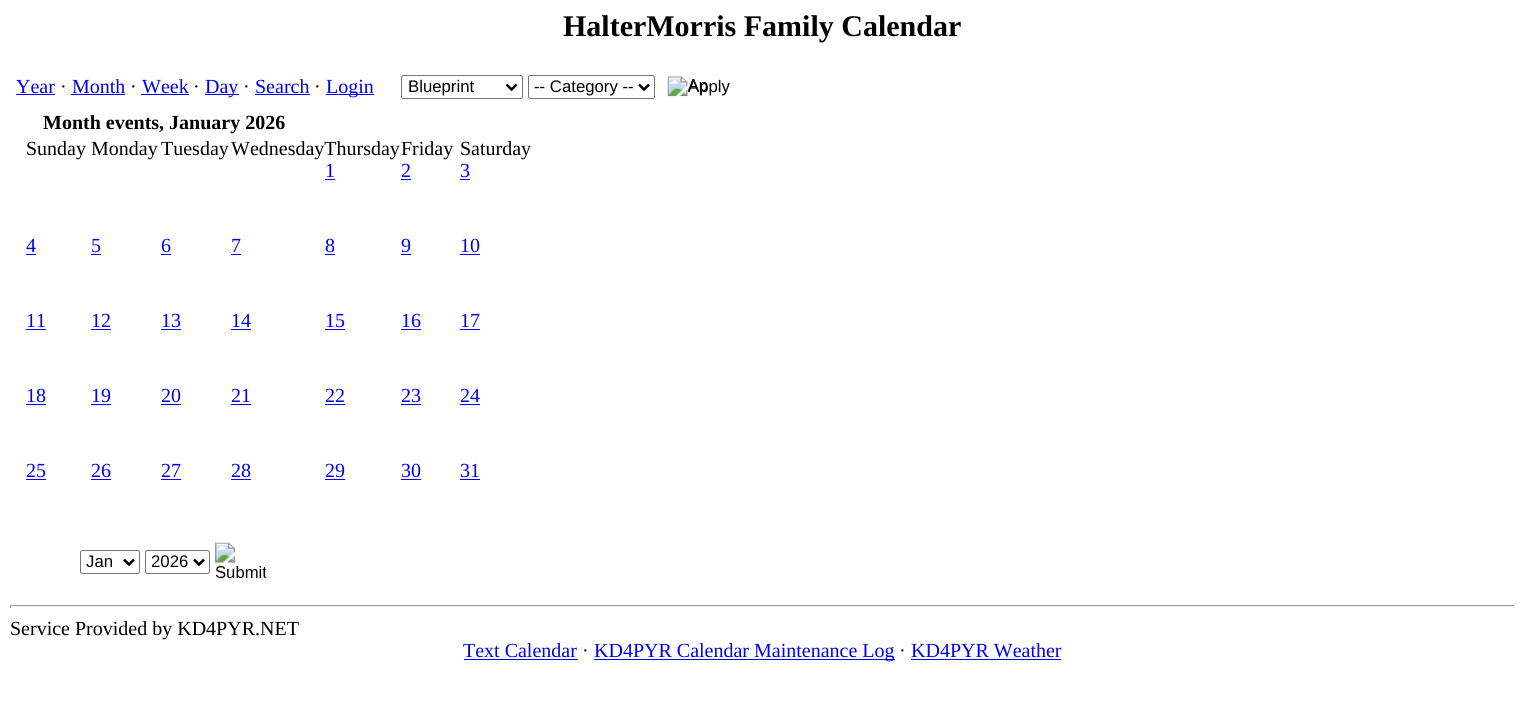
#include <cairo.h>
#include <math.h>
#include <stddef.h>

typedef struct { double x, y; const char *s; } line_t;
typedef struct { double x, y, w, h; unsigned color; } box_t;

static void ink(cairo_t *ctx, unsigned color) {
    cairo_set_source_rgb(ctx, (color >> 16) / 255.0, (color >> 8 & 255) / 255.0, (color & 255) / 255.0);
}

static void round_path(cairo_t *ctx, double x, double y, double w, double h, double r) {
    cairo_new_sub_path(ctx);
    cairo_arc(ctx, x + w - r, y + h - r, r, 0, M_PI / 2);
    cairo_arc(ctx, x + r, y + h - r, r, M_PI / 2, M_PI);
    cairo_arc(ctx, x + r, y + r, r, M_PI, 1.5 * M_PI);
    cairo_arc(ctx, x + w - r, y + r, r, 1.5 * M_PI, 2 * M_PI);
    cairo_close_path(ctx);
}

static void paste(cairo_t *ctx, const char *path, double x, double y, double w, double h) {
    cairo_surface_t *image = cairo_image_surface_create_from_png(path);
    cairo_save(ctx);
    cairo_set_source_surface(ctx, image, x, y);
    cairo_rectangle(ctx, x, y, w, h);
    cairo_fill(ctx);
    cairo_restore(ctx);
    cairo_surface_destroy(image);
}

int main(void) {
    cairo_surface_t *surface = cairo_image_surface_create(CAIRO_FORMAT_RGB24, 1525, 709);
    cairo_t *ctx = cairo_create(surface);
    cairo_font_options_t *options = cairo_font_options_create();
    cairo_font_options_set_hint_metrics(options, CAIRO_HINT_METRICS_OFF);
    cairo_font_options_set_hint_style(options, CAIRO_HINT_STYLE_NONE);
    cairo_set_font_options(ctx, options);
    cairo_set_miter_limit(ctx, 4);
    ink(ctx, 0xFFFFFF);
    cairo_paint(ctx);
    cairo_select_font_face(ctx, "Liberation Serif", CAIRO_FONT_SLANT_NORMAL, CAIRO_FONT_WEIGHT_BOLD);
    cairo_set_font_size(ctx, 30);
    ink(ctx, 0x000000);
    cairo_move_to(ctx, 563, 36);
    cairo_show_text(ctx, "HalterMorris Family Calendar");
    cairo_select_font_face(ctx, "Liberation Serif", CAIRO_FONT_SLANT_NORMAL, CAIRO_FONT_WEIGHT_NORMAL);
    cairo_set_font_size(ctx, 20);
    ink(ctx, 0x0000EE);
    cairo_move_to(ctx, 16, 93);
    cairo_show_text(ctx, "Year");
    cairo_rectangle(ctx, 16, 94, 39, 1);
    cairo_fill(ctx);
    ink(ctx, 0x000000);
    cairo_move_to(ctx, 60, 93);
    cairo_show_text(ctx, "·");
    ink(ctx, 0x0000EE);
    cairo_move_to(ctx, 72, 93);
    cairo_show_text(ctx, "Month");
    cairo_rectangle(ctx, 71, 94, 54, 1);
    cairo_fill(ctx);
    ink(ctx, 0x000000);
    cairo_move_to(ctx, 130, 93);
    cairo_show_text(ctx, "·");
    ink(ctx, 0x0000EE);
    cairo_move_to(ctx, 142, 93);
    cairo_show_text(ctx, "Week");
    cairo_rectangle(ctx, 141, 94, 48, 1);
    cairo_fill(ctx);
    ink(ctx, 0x000000);
    cairo_move_to(ctx, 193, 93);
    cairo_show_text(ctx, "·");
    ink(ctx, 0x0000EE);
    cairo_rectangle(ctx, 205, 94, 34, 1);
    cairo_fill(ctx);
    cairo_move_to(ctx, 205, 93);
    cairo_show_text(ctx, "Day");
    ink(ctx, 0x000000);
    cairo_move_to(ctx, 243, 93);
    cairo_show_text(ctx, "·");
    ink(ctx, 0x0000EE);
    cairo_move_to(ctx, 255, 93);
    cairo_show_text(ctx, "Search");
    cairo_rectangle(ctx, 255, 94, 55, 1);
    cairo_fill(ctx);
    ink(ctx, 0x000000);
    cairo_move_to(ctx, 314, 93);
    cairo_show_text(ctx, "·");
    ink(ctx, 0x0000EE);
    cairo_rectangle(ctx, 326, 94, 48, 1);
    cairo_fill(ctx);
    cairo_move_to(ctx, 326, 93);
    cairo_show_text(ctx, "Login");
    round_path(ctx, 401.5, 75.5, 121, 23, 2);
    ink(ctx, 0x767676);
    cairo_set_line_width(ctx, 1);
    cairo_stroke(ctx);
    cairo_new_path(ctx);
    cairo_move_to(ctx, 506.5, 84.5);
    cairo_line_to(ctx, 511.5, 89.5);
    cairo_line_to(ctx, 516.5, 84.5);
    ink(ctx, 0x000000);
    cairo_set_line_width(ctx, 2.5);
    cairo_stroke(ctx);
    cairo_select_font_face(ctx, "Liberation Sans", CAIRO_FONT_SLANT_NORMAL, CAIRO_FONT_WEIGHT_NORMAL);
    cairo_set_font_size(ctx, 16.75);
    cairo_move_to(ctx, 408, 92);
    cairo_show_text(ctx, "Blueprint");
    round_path(ctx, 528.5, 75.5, 126, 23, 2);
    ink(ctx, 0x767676);
    cairo_set_line_width(ctx, 1);
    cairo_stroke(ctx);
    cairo_new_path(ctx);
    cairo_move_to(ctx, 639, 84.5);
    cairo_line_to(ctx, 644, 89.5);
    cairo_line_to(ctx, 649, 84.5);
    ink(ctx, 0x000000);
    cairo_set_line_width(ctx, 2.5);
    cairo_stroke(ctx);
    cairo_move_to(ctx, 534, 92);
    cairo_show_text(ctx, "-- Category --");
    paste(ctx, "media/1.png", 667, 76, 41, 21);
    cairo_move_to(ctx, 688, 92);
    cairo_show_text(ctx, "Apply");
    cairo_select_font_face(ctx, "Liberation Serif", CAIRO_FONT_SLANT_NORMAL, CAIRO_FONT_WEIGHT_BOLD);
    cairo_set_font_size(ctx, 20);
    cairo_move_to(ctx, 43, 129);
    cairo_show_text(ctx, "Month events, January 2026");
    cairo_select_font_face(ctx, "Liberation Serif", CAIRO_FONT_SLANT_NORMAL, CAIRO_FONT_WEIGHT_NORMAL);
    {
        static const line_t items[] = {
            {26, 155, "Sunday Monday"},
            {161, 155, "Tuesday"},
            {231, 155, "WednesdayThursday"},
            {401, 155, "Friday"},
            {460, 155, "Saturday"},
        };
        for (size_t i = 0; i < sizeof items / sizeof *items; i++) {
            cairo_move_to(ctx, items[i].x, items[i].y);
            cairo_show_text(ctx, items[i].s);
        }
    }
    ink(ctx, 0x0000EE);
    cairo_move_to(ctx, 325, 177);
    cairo_show_text(ctx, "1");
    cairo_rectangle(ctx, 325, 179, 10, 1);
    cairo_fill(ctx);
    cairo_move_to(ctx, 401, 177);
    cairo_show_text(ctx, "2");
    cairo_rectangle(ctx, 401, 179, 10, 1);
    cairo_fill(ctx);
    cairo_move_to(ctx, 460, 177);
    cairo_show_text(ctx, "3");
    cairo_rectangle(ctx, 460, 179, 10, 1);
    cairo_fill(ctx);
    cairo_move_to(ctx, 26, 252);
    cairo_show_text(ctx, "4");
    cairo_rectangle(ctx, 26, 254, 10, 1);
    cairo_fill(ctx);
    cairo_move_to(ctx, 91, 252);
    cairo_show_text(ctx, "5");
    cairo_rectangle(ctx, 91, 254, 10, 1);
    cairo_fill(ctx);
    cairo_move_to(ctx, 161, 252);
    cairo_show_text(ctx, "6");
    cairo_rectangle(ctx, 161, 254, 10, 1);
    cairo_fill(ctx);
    cairo_move_to(ctx, 231, 252);
    cairo_show_text(ctx, "7");
    cairo_rectangle(ctx, 231, 254, 10, 1);
    cairo_fill(ctx);
    cairo_move_to(ctx, 325, 252);
    cairo_show_text(ctx, "8");
    cairo_rectangle(ctx, 325, 254, 10, 1);
    cairo_fill(ctx);
    cairo_move_to(ctx, 401, 252);
    cairo_show_text(ctx, "9");
    cairo_rectangle(ctx, 401, 254, 10, 1);
    cairo_fill(ctx);
    cairo_move_to(ctx, 460, 252);
    cairo_show_text(ctx, "10");
    cairo_rectangle(ctx, 460, 254, 20, 1);
    cairo_fill(ctx);
    cairo_move_to(ctx, 26, 327);
    cairo_show_text(ctx, "11");
    cairo_rectangle(ctx, 26, 329, 20, 1);
    cairo_fill(ctx);
    cairo_move_to(ctx, 91, 327);
    cairo_show_text(ctx, "12");
    cairo_rectangle(ctx, 91, 329, 20, 1);
    cairo_fill(ctx);
    cairo_move_to(ctx, 161, 327);
    cairo_show_text(ctx, "13");
    cairo_rectangle(ctx, 161, 329, 20, 1);
    cairo_fill(ctx);
    cairo_move_to(ctx, 231, 327);
    cairo_show_text(ctx, "14");
    cairo_rectangle(ctx, 231, 329, 20, 1);
    cairo_fill(ctx);
    cairo_move_to(ctx, 325, 327);
    cairo_show_text(ctx, "15");
    cairo_rectangle(ctx, 325, 329, 20, 1);
    cairo_fill(ctx);
    cairo_move_to(ctx, 401, 327);
    cairo_show_text(ctx, "16");
    cairo_rectangle(ctx, 401, 329, 20, 1);
    cairo_fill(ctx);
    cairo_move_to(ctx, 460, 327);
    cairo_show_text(ctx, "17");
    cairo_rectangle(ctx, 460, 329, 20, 1);
    cairo_fill(ctx);
    cairo_move_to(ctx, 26, 402);
    cairo_show_text(ctx, "18");
    cairo_rectangle(ctx, 26, 404, 20, 1);
    cairo_fill(ctx);
    cairo_move_to(ctx, 91, 402);
    cairo_show_text(ctx, "19");
    cairo_rectangle(ctx, 91, 404, 20, 1);
    cairo_fill(ctx);
    cairo_move_to(ctx, 161, 402);
    cairo_show_text(ctx, "20");
    cairo_rectangle(ctx, 161, 404, 20, 1);
    cairo_fill(ctx);
    cairo_move_to(ctx, 231, 402);
    cairo_show_text(ctx, "21");
    cairo_rectangle(ctx, 231, 404, 20, 1);
    cairo_fill(ctx);
    cairo_move_to(ctx, 325, 402);
    cairo_show_text(ctx, "22");
    cairo_rectangle(ctx, 325, 404, 20, 1);
    cairo_fill(ctx);
    cairo_move_to(ctx, 401, 402);
    cairo_show_text(ctx, "23");
    cairo_rectangle(ctx, 401, 404, 20, 1);
    cairo_fill(ctx);
    cairo_move_to(ctx, 460, 402);
    cairo_show_text(ctx, "24");
    cairo_rectangle(ctx, 460, 404, 20, 1);
    cairo_fill(ctx);
    cairo_move_to(ctx, 26, 477);
    cairo_show_text(ctx, "25");
    cairo_rectangle(ctx, 26, 479, 20, 1);
    cairo_fill(ctx);
    cairo_move_to(ctx, 91, 477);
    cairo_show_text(ctx, "26");
    cairo_rectangle(ctx, 91, 479, 20, 1);
    cairo_fill(ctx);
    cairo_move_to(ctx, 161, 477);
    cairo_show_text(ctx, "27");
    cairo_rectangle(ctx, 161, 479, 20, 1);
    cairo_fill(ctx);
    cairo_move_to(ctx, 231, 477);
    cairo_show_text(ctx, "28");
    cairo_rectangle(ctx, 231, 479, 20, 1);
    cairo_fill(ctx);
    cairo_move_to(ctx, 325, 477);
    cairo_show_text(ctx, "29");
    cairo_rectangle(ctx, 325, 479, 20, 1);
    cairo_fill(ctx);
    cairo_move_to(ctx, 401, 477);
    cairo_show_text(ctx, "30");
    cairo_rectangle(ctx, 401, 479, 20, 1);
    cairo_fill(ctx);
    cairo_move_to(ctx, 460, 477);
    cairo_show_text(ctx, "31");
    cairo_rectangle(ctx, 460, 479, 20, 1);
    cairo_fill(ctx);
    round_path(ctx, 80.5, 550.5, 59, 23, 2);
    ink(ctx, 0x767676);
    cairo_set_line_width(ctx, 1);
    cairo_stroke(ctx);
    cairo_new_path(ctx);
    cairo_move_to(ctx, 124, 559.5);
    cairo_line_to(ctx, 129, 564.5);
    cairo_line_to(ctx, 134, 559.5);
    ink(ctx, 0x000000);
    cairo_set_line_width(ctx, 2.5);
    cairo_stroke(ctx);
    cairo_select_font_face(ctx, "Liberation Sans", CAIRO_FONT_SLANT_NORMAL, CAIRO_FONT_WEIGHT_NORMAL);
    cairo_set_font_size(ctx, 16.75);
    cairo_move_to(ctx, 86, 567);
    cairo_show_text(ctx, "Jan");
    round_path(ctx, 145.5, 550.5, 64, 23, 2);
    ink(ctx, 0x767676);
    cairo_set_line_width(ctx, 1);
    cairo_stroke(ctx);
    cairo_new_path(ctx);
    cairo_move_to(ctx, 194, 559.5);
    cairo_line_to(ctx, 199, 564.5);
    cairo_line_to(ctx, 204, 559.5);
    ink(ctx, 0x000000);
    cairo_set_line_width(ctx, 2.5);
    cairo_stroke(ctx);
    cairo_move_to(ctx, 151, 567);
    cairo_show_text(ctx, "2026");
    paste(ctx, "media/2.png", 215, 542, 52, 36);
    {
        static const box_t items[] = {
            {10, 605, 1505, 1, 0x9F9F9F},
            {1514, 605, 1, 3, 0xEEEEEE},
            {10, 606, 1505, 1, 0xEEEEEE},
            {10, 605, 1, 3, 0x9F9F9F},
        };
        for (size_t i = 0; i < sizeof items / sizeof *items; i++) {
            ink(ctx, items[i].color);
            cairo_rectangle(ctx, items[i].x, items[i].y, items[i].w, items[i].h);
            cairo_fill(ctx);
        }
    }
    cairo_select_font_face(ctx, "Liberation Serif", CAIRO_FONT_SLANT_NORMAL, CAIRO_FONT_WEIGHT_NORMAL);
    cairo_set_font_size(ctx, 20);
    ink(ctx, 0x000000);
    cairo_move_to(ctx, 10, 635);
    cairo_show_text(ctx, "Service Provided by KD4PYR.NET");
    ink(ctx, 0x0000EE);
    cairo_move_to(ctx, 463, 657);
    cairo_show_text(ctx, "Text Calendar");
    cairo_rectangle(ctx, 464, 659, 114, 1);
    cairo_fill(ctx);
    ink(ctx, 0x000000);
    cairo_move_to(ctx, 582, 657);
    cairo_show_text(ctx, "·");
    ink(ctx, 0x0000EE);
    cairo_rectangle(ctx, 594, 659, 301, 1);
    cairo_fill(ctx);
    cairo_move_to(ctx, 594, 657);
    cairo_show_text(ctx, "KD4PYR Calendar Maintenance Log");
    ink(ctx, 0x000000);
    cairo_move_to(ctx, 899, 657);
    cairo_show_text(ctx, "·");
    ink(ctx, 0x0000EE);
    cairo_move_to(ctx, 911, 657);
    cairo_show_text(ctx, "KD4PYR Weather");
    cairo_rectangle(ctx, 911, 659, 150, 1);
    cairo_fill(ctx);
    cairo_surface_write_to_png(surface, "image.png");
    cairo_font_options_destroy(options);
    cairo_destroy(ctx);
    cairo_surface_destroy(surface);
    return 0;
}
